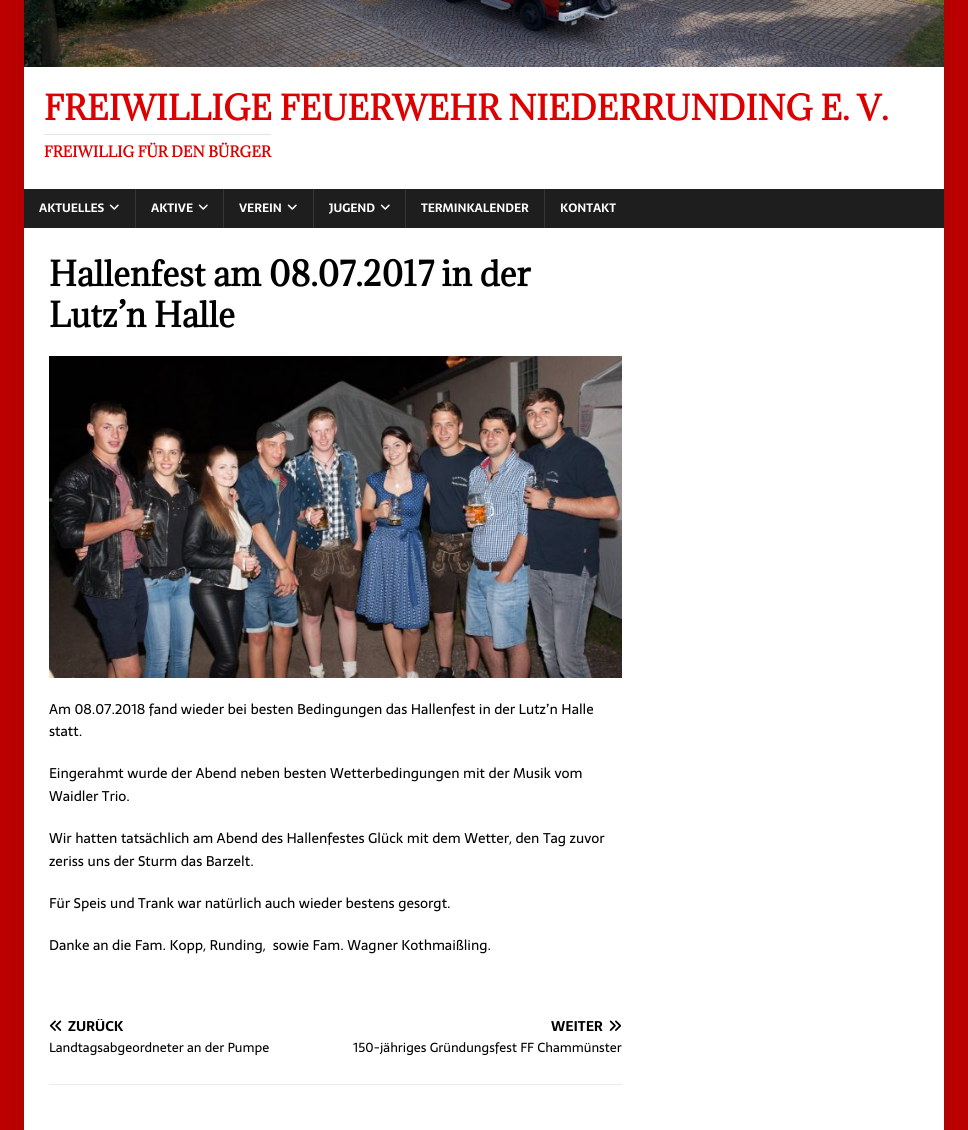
#include <cairo.h>
#include <math.h>
#include <stddef.h>

typedef struct { double x, y; const char *s; } line_t;

static void ink(cairo_t *ctx, unsigned color) {
    cairo_set_source_rgb(ctx, (color >> 16) / 255.0, (color >> 8 & 255) / 255.0, (color & 255) / 255.0);
}

static void round_path(cairo_t *ctx, double x, double y, double w, double h, double r) {
    cairo_new_sub_path(ctx);
    cairo_arc(ctx, x + w - r, y + h - r, r, 0, M_PI / 2);
    cairo_arc(ctx, x + r, y + h - r, r, M_PI / 2, M_PI);
    cairo_arc(ctx, x + r, y + r, r, M_PI, 1.5 * M_PI);
    cairo_arc(ctx, x + w - r, y + r, r, 1.5 * M_PI, 2 * M_PI);
    cairo_close_path(ctx);
}

static void blur_box(cairo_t *ctx, double x, double y, double w, double h, double r, double blur, double alpha) {
    cairo_push_group_with_content(ctx, CAIRO_CONTENT_ALPHA);
    cairo_set_operator(ctx, CAIRO_OPERATOR_SOURCE);
    for (int i = 15; i >= -15 && fmin(w, h) + blur * i / 3 > 0; i -= 2) {
        double e = blur * i / 6;
        cairo_set_source_rgba(ctx, 0, 0, 0, alpha * erfc((i - 1) / 8.5) / 2);
        round_path(ctx, x - e, y - e, w + 2 * e, h + 2 * e, fmax(0, fmin(r + e + blur * .6, fmin(w, h) / 2 + e)));
        cairo_fill(ctx);
    }
    cairo_pattern_t *soft = cairo_pop_group(ctx);
    cairo_mask(ctx, soft);
    cairo_pattern_destroy(soft);
}

static void paste(cairo_t *ctx, const char *path, double x, double y, double w, double h) {
    cairo_surface_t *image = cairo_image_surface_create_from_png(path);
    cairo_save(ctx);
    cairo_set_source_surface(ctx, image, x, y);
    cairo_rectangle(ctx, x, y, w, h);
    cairo_fill(ctx);
    cairo_restore(ctx);
    cairo_surface_destroy(image);
}

int main(void) {
    cairo_surface_t *surface = cairo_image_surface_create(CAIRO_FORMAT_RGB24, 968, 1130);
    cairo_t *ctx = cairo_create(surface);
    cairo_font_options_t *options = cairo_font_options_create();
    cairo_font_options_set_hint_metrics(options, CAIRO_HINT_METRICS_OFF);
    cairo_font_options_set_hint_style(options, CAIRO_HINT_STYLE_NONE);
    cairo_set_font_options(ctx, options);
    cairo_set_miter_limit(ctx, 4);
    ink(ctx, 0xBA0000);
    cairo_paint(ctx);
    ink(ctx, 0x323232);
    blur_box(ctx, 24, -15, 920, 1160, 0, 5, 0.17);
    ink(ctx, 0xFFFFFF);
    cairo_rectangle(ctx, 24, 67, 920, 122);
    cairo_fill(ctx);
    paste(ctx, "media/1.png", 24, 0, 920, 67);
    cairo_select_font_face(ctx, "Adamina", CAIRO_FONT_SLANT_NORMAL, CAIRO_FONT_WEIGHT_BOLD);
    cairo_set_font_size(ctx, 32);
    ink(ctx, 0xDD0000);
    cairo_move_to(ctx, 44, 120);
    cairo_show_text(ctx, "FREIWILLIGE FEUERWEHR NIEDERRUNDING E. V.");
    ink(ctx, 0xE5E5E5);
    cairo_rectangle(ctx, 44, 134, 227, 1);
    cairo_fill(ctx);
    cairo_set_font_size(ctx, 14);
    ink(ctx, 0xDD0000);
    cairo_move_to(ctx, 44, 157);
    cairo_show_text(ctx, "FREIWILLIG FÜR DEN BÜRGER");
    ink(ctx, 0x1F1E1E);
    cairo_rectangle(ctx, 24, 189, 920, 39);
    cairo_fill(ctx);
    cairo_select_font_face(ctx, "Sarala", CAIRO_FONT_SLANT_NORMAL, CAIRO_FONT_WEIGHT_BOLD);
    cairo_set_font_size(ctx, 12);
    ink(ctx, 0xFFFFFF);
    cairo_move_to(ctx, 39, 212);
    cairo_show_text(ctx, "AKTUELLES");
    paste(ctx, "media/2.png", 109, 204, 10, 6);
    ink(ctx, 0x353535);
    cairo_rectangle(ctx, 135, 189, 1, 39);
    cairo_fill(ctx);
    ink(ctx, 0xFFFFFF);
    cairo_move_to(ctx, 151, 212);
    cairo_show_text(ctx, "AKTIVE");
    paste(ctx, "media/2.png", 198, 204, 10, 6);
    ink(ctx, 0x353535);
    cairo_rectangle(ctx, 223, 189, 1, 39);
    cairo_fill(ctx);
    ink(ctx, 0xFFFFFF);
    cairo_move_to(ctx, 239, 212);
    cairo_show_text(ctx, "VEREIN");
    paste(ctx, "media/2.png", 287, 204, 10, 6);
    ink(ctx, 0x353535);
    cairo_rectangle(ctx, 313, 189, 1, 39);
    cairo_fill(ctx);
    ink(ctx, 0xFFFFFF);
    cairo_move_to(ctx, 329, 212);
    cairo_show_text(ctx, "JUGEND");
    paste(ctx, "media/2.png", 380, 204, 10, 6);
    ink(ctx, 0x353535);
    cairo_rectangle(ctx, 405, 189, 1, 39);
    cairo_fill(ctx);
    ink(ctx, 0xFFFFFF);
    cairo_move_to(ctx, 421, 212);
    cairo_show_text(ctx, "TERMINKALENDER");
    ink(ctx, 0x353535);
    cairo_rectangle(ctx, 544, 189, 1, 39);
    cairo_fill(ctx);
    ink(ctx, 0xFFFFFF);
    cairo_move_to(ctx, 560, 212);
    cairo_show_text(ctx, "KONTAKT");
    cairo_rectangle(ctx, 24, 228, 920, 902);
    cairo_fill(ctx);
    cairo_select_font_face(ctx, "Adamina", CAIRO_FONT_SLANT_NORMAL, CAIRO_FONT_WEIGHT_BOLD);
    cairo_set_font_size(ctx, 32);
    ink(ctx, 0x000000);
    cairo_move_to(ctx, 49, 286);
    cairo_show_text(ctx, "Hallenfest am 08.07.2017 in der");
    cairo_move_to(ctx, 49, 327);
    cairo_show_text(ctx, "Lutz’n Halle");
    paste(ctx, "media/3.png", 49, 356, 573, 322);
    cairo_select_font_face(ctx, "Sarala", CAIRO_FONT_SLANT_NORMAL, CAIRO_FONT_WEIGHT_NORMAL);
    cairo_set_font_size(ctx, 14);
    {
        static const line_t items[] = {
            {49, 714, "Am 08.07.2018 fand wieder bei besten Bedingungen das Hallenfest in der Lutz’n Halle"},
            {49, 736, "statt."},
            {49, 778, "Eingerahmt wurde der Abend neben besten Wetterbedingungen mit der Musik vom"},
            {49, 801, "Waidler Trio."},
            {49, 843, "Wir hatten tatsächlich am Abend des Hallenfestes Glück mit dem Wetter, den Tag zuvor"},
            {49, 866, "zeriss uns der Sturm das Barzelt."},
            {49, 908, "Für Speis und Trank war natürlich auch wieder bestens gesorgt."},
            {49, 950, "Danke an die Fam. Kopp, Runding,  sowie Fam. Wagner Kothmaißling."},
        };
        for (size_t i = 0; i < sizeof items / sizeof *items; i++) {
            cairo_move_to(ctx, items[i].x, items[i].y);
            cairo_show_text(ctx, items[i].s);
        }
    }
    ink(ctx, 0xEBEBEB);
    cairo_rectangle(ctx, 49, 1084, 573, 1);
    cairo_fill(ctx);
    paste(ctx, "media/4.png", 49, 1020, 13, 11);
    cairo_save(ctx);
    cairo_rectangle(ctx, 49, 1019, 279, 14);
    cairo_clip(ctx);
    cairo_select_font_face(ctx, "Sarala", CAIRO_FONT_SLANT_NORMAL, CAIRO_FONT_WEIGHT_BOLD);
    ink(ctx, 0x000000);
    cairo_move_to(ctx, 68, 1031);
    cairo_show_text(ctx, "ZURÜCK");
    cairo_restore(ctx);
    cairo_set_font_size(ctx, 13);
    ink(ctx, 0x000000);
    cairo_move_to(ctx, 49, 1052);
    cairo_show_text(ctx, "Landtagsabgeordneter an der Pumpe");
    cairo_select_font_face(ctx, "Sarala", CAIRO_FONT_SLANT_NORMAL, CAIRO_FONT_WEIGHT_BOLD);
    cairo_set_font_size(ctx, 14);
    cairo_move_to(ctx, 551, 1031);
    cairo_show_text(ctx, "WEITER");
    paste(ctx, "media/5.png", 609, 1020, 13, 11);
    cairo_select_font_face(ctx, "Sarala", CAIRO_FONT_SLANT_NORMAL, CAIRO_FONT_WEIGHT_NORMAL);
    cairo_set_font_size(ctx, 13);
    cairo_move_to(ctx, 353, 1052);
    cairo_show_text(ctx, "150-jähriges Gründungsfest FF Chammünster");
    cairo_surface_write_to_png(surface, "image.png");
    cairo_font_options_destroy(options);
    cairo_destroy(ctx);
    cairo_surface_destroy(surface);
    return 0;
}
